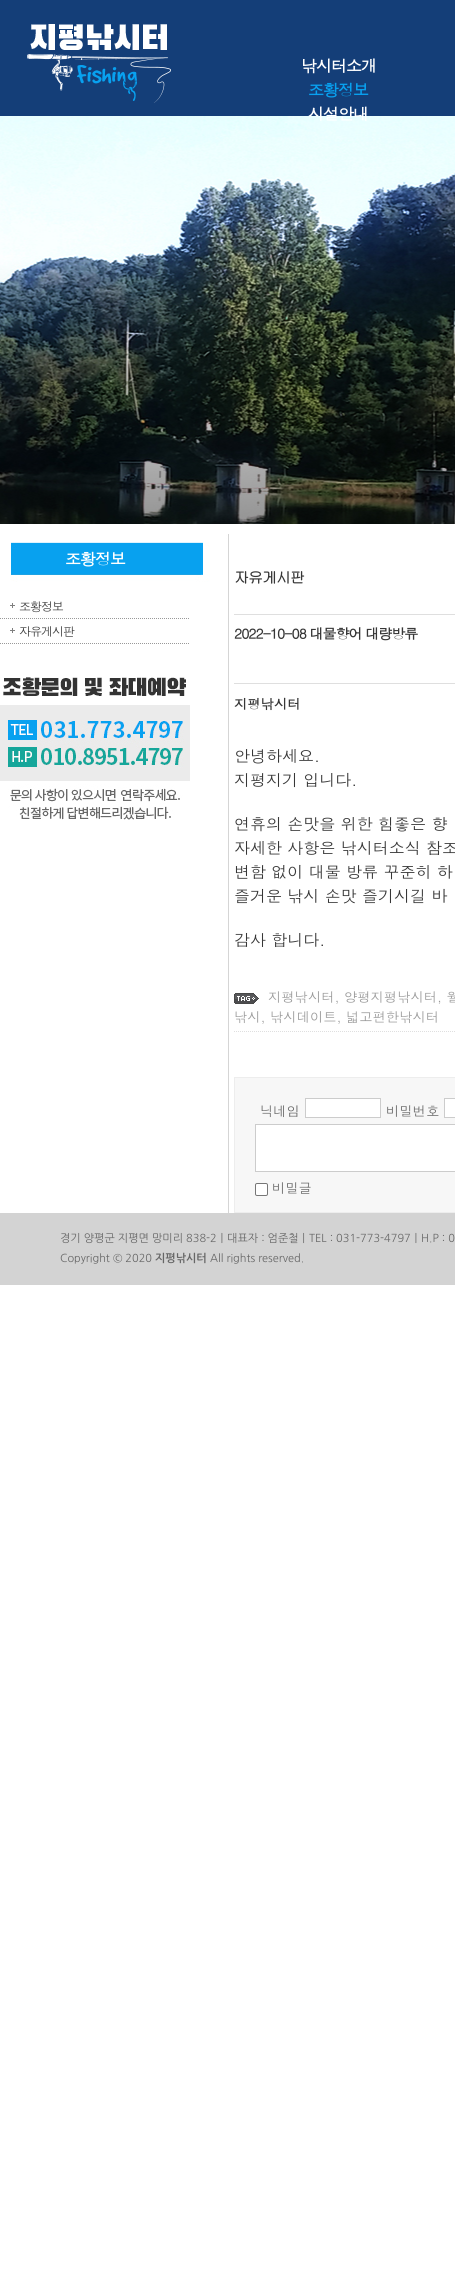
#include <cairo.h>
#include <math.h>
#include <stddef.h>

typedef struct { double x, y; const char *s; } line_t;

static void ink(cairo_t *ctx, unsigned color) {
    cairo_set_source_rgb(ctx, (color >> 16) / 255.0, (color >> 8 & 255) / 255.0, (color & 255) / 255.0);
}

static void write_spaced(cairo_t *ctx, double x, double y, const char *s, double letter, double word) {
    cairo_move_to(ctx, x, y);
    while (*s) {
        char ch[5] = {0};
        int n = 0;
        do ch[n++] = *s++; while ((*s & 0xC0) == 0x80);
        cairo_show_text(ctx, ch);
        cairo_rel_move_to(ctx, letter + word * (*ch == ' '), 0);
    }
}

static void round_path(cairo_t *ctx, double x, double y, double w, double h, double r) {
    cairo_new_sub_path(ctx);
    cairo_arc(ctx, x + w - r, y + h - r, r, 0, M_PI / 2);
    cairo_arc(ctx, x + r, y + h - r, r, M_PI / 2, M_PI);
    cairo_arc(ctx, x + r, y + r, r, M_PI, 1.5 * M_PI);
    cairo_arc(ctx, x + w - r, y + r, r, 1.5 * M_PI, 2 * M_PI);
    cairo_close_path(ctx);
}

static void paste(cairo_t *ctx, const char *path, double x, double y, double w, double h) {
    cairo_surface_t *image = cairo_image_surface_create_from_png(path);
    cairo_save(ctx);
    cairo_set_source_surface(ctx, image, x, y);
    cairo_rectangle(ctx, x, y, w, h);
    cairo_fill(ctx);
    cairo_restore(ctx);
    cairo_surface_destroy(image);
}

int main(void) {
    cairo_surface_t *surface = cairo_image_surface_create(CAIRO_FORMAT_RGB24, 455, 2288);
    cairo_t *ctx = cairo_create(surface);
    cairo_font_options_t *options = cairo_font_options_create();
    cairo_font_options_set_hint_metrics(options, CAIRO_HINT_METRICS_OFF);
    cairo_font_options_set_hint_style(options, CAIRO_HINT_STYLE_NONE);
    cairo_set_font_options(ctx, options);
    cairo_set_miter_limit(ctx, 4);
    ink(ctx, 0xFFFFFF);
    cairo_paint(ctx);
    paste(ctx, "media/1.png", 0, 0, 455, 524);
    paste(ctx, "media/2.png", 27, 24, 144, 79);
    cairo_select_font_face(ctx, "Dotum", CAIRO_FONT_SLANT_NORMAL, CAIRO_FONT_WEIGHT_BOLD);
    cairo_set_font_size(ctx, 16);
    ink(ctx, 0xFFFFFF);
    write_spaced(ctx, 301, 72, "낚시터소개", -1, 0);
    ink(ctx, 0x08A1F0);
    write_spaced(ctx, 308, 96, "조황정보", -1, 0);
    ink(ctx, 0xFFFFFF);
    write_spaced(ctx, 308, 120, "시설안내", -1, 0);
    paste(ctx, "media/3.png", 10, 534, 219, 679);
    write_spaced(ctx, 65, 565, "조황정보", -1, 0);
    cairo_new_path(ctx);
    cairo_move_to(ctx, 0, 618.5);
    cairo_line_to(ctx, 190, 618.5);
    ink(ctx, 0x999999);
    cairo_set_line_width(ctx, 1);
    cairo_set_dash(ctx, (double[]){1, 1}, 2, 0);
    cairo_stroke(ctx);
    paste(ctx, "media/4.png", 10, 603, 5, 5);
    cairo_select_font_face(ctx, "Dotum", CAIRO_FONT_SLANT_NORMAL, CAIRO_FONT_WEIGHT_NORMAL);
    cairo_set_font_size(ctx, 12);
    ink(ctx, 0x373737);
    write_spaced(ctx, 19, 611, "조황정보", -1, 0);
    cairo_new_path(ctx);
    cairo_move_to(ctx, 0, 643.5);
    cairo_line_to(ctx, 190, 643.5);
    ink(ctx, 0x999999);
    cairo_stroke(ctx);
    paste(ctx, "media/4.png", 10, 628, 5, 5);
    ink(ctx, 0x373737);
    write_spaced(ctx, 19, 636, "자유게시판", -1, 0);
    paste(ctx, "media/5.png", 0, 677, 190, 143);
    cairo_select_font_face(ctx, "Gulim", CAIRO_FONT_SLANT_NORMAL, CAIRO_FONT_WEIGHT_BOLD);
    cairo_set_font_size(ctx, 15);
    write_spaced(ctx, 234, 583, "자유게시판", -1, 0);
    ink(ctx, 0xDFDFDF);
    cairo_rectangle(ctx, 234, 614, 221, 1);
    cairo_fill(ctx);
    cairo_rectangle(ctx, 234, 683, 221, 1);
    cairo_fill(ctx);
    cairo_select_font_face(ctx, "Dotum", CAIRO_FONT_SLANT_NORMAL, CAIRO_FONT_WEIGHT_BOLD);
    cairo_set_font_size(ctx, 14);
    ink(ctx, 0x373737);
    write_spaced(ctx, 234, 639, "2022-10-08 대물향어 대량방류", -1, 0);
    cairo_set_font_size(ctx, 13.3);
    cairo_move_to(ctx, 234, 709);
    cairo_show_text(ctx, "지평낚시터");
    cairo_select_font_face(ctx, "Dotum", CAIRO_FONT_SLANT_NORMAL, CAIRO_FONT_WEIGHT_NORMAL);
    cairo_set_font_size(ctx, 16);
    {
        static const line_t items[] = {
            {234, 762, "안녕하세요."},
            {234, 786, "지평지기 입니다."},
            {234, 830, "연휴의 손맛을 위한 힘좋은 향"},
            {234, 854, "자세한 사항은 낚시터소식 참조"},
            {234, 878, "변함 없이 대물 방류 꾸준히 하"},
            {234, 902, "즐거운 낚시 손맛 즐기시길 바"},
            {234, 946, "감사 합니다."},
        };
        for (size_t i = 0; i < sizeof items / sizeof *items; i++) {
            cairo_move_to(ctx, items[i].x, items[i].y);
            cairo_show_text(ctx, items[i].s);
        }
    }
    paste(ctx, "media/6.png", 234, 993, 25, 11);
    cairo_set_font_size(ctx, 13.3);
    ink(ctx, 0x999999);
    cairo_move_to(ctx, 268, 1002);
    cairo_show_text(ctx, "지평낚시터, 양평지평낚시터, 월");
    cairo_move_to(ctx, 234, 1022);
    cairo_show_text(ctx, "낚시, 낚시데이트, 넓고편한낚시터");
    cairo_new_path(ctx);
    cairo_move_to(ctx, 234, 1031.5);
    cairo_line_to(ctx, 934, 1031.5);
    ink(ctx, 0xDFDFDF);
    cairo_stroke(ctx);
    cairo_rectangle(ctx, 234.5, 1077.5, 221, 135);
    ink(ctx, 0xEDEDED);
    cairo_set_dash(ctx, NULL, 0, 0);
    cairo_stroke(ctx);
    ink(ctx, 0xF7F7F7);
    cairo_rectangle(ctx, 235, 1078, 220, 134);
    cairo_fill(ctx);
    ink(ctx, 0x666666);
    cairo_move_to(ctx, 260, 1116);
    cairo_show_text(ctx, "닉네임");
    ink(ctx, 0xFFFFFF);
    cairo_rectangle(ctx, 305.5, 1098.5, 75, 19);
    cairo_fill_preserve(ctx);
    ink(ctx, 0xCCCCCC);
    cairo_stroke(ctx);
    ink(ctx, 0x666666);
    cairo_move_to(ctx, 386, 1116);
    cairo_show_text(ctx, "비밀번호");
    ink(ctx, 0xFFFFFF);
    cairo_rectangle(ctx, 444.5, 1098.5, 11, 19);
    cairo_fill_preserve(ctx);
    ink(ctx, 0xCCCCCC);
    cairo_stroke(ctx);
    ink(ctx, 0xFFFFFF);
    cairo_rectangle(ctx, 255.5, 1124.5, 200, 47);
    cairo_fill_preserve(ctx);
    ink(ctx, 0xCCCCCC);
    cairo_stroke(ctx);
    ink(ctx, 0xFFFFFF);
    round_path(ctx, 255.5, 1183.5, 12, 12, 1.5);
    cairo_fill_preserve(ctx);
    ink(ctx, 0x767676);
    cairo_stroke(ctx);
    ink(ctx, 0x666666);
    cairo_move_to(ctx, 272, 1193);
    cairo_show_text(ctx, "비밀글");
    ink(ctx, 0xD3D3D3);
    cairo_rectangle(ctx, 0, 1213, 455, 72);
    cairo_fill(ctx);
    cairo_select_font_face(ctx, "NanumGothic", CAIRO_FONT_SLANT_NORMAL, CAIRO_FONT_WEIGHT_NORMAL);
    cairo_set_font_size(ctx, 11);
    ink(ctx, 0x666666);
    cairo_move_to(ctx, 60, 1242);
    cairo_show_text(ctx, "경기 양평군 지평면 망미리 838-2ㅣ대표자 : 엄준철ㅣTEL : 031-773-4797ㅣH.P : 0");
    cairo_move_to(ctx, 60, 1262);
    cairo_show_text(ctx, "Copyright © 2020");
    cairo_select_font_face(ctx, "NanumGothic", CAIRO_FONT_SLANT_NORMAL, CAIRO_FONT_WEIGHT_BOLD);
    cairo_move_to(ctx, 155, 1262);
    cairo_show_text(ctx, "지평낚시터");
    cairo_select_font_face(ctx, "NanumGothic", CAIRO_FONT_SLANT_NORMAL, CAIRO_FONT_WEIGHT_NORMAL);
    cairo_move_to(ctx, 210, 1262);
    cairo_show_text(ctx, "All rights reserved.");
    cairo_surface_write_to_png(surface, "image.png");
    cairo_font_options_destroy(options);
    cairo_destroy(ctx);
    cairo_surface_destroy(surface);
    return 0;
}
